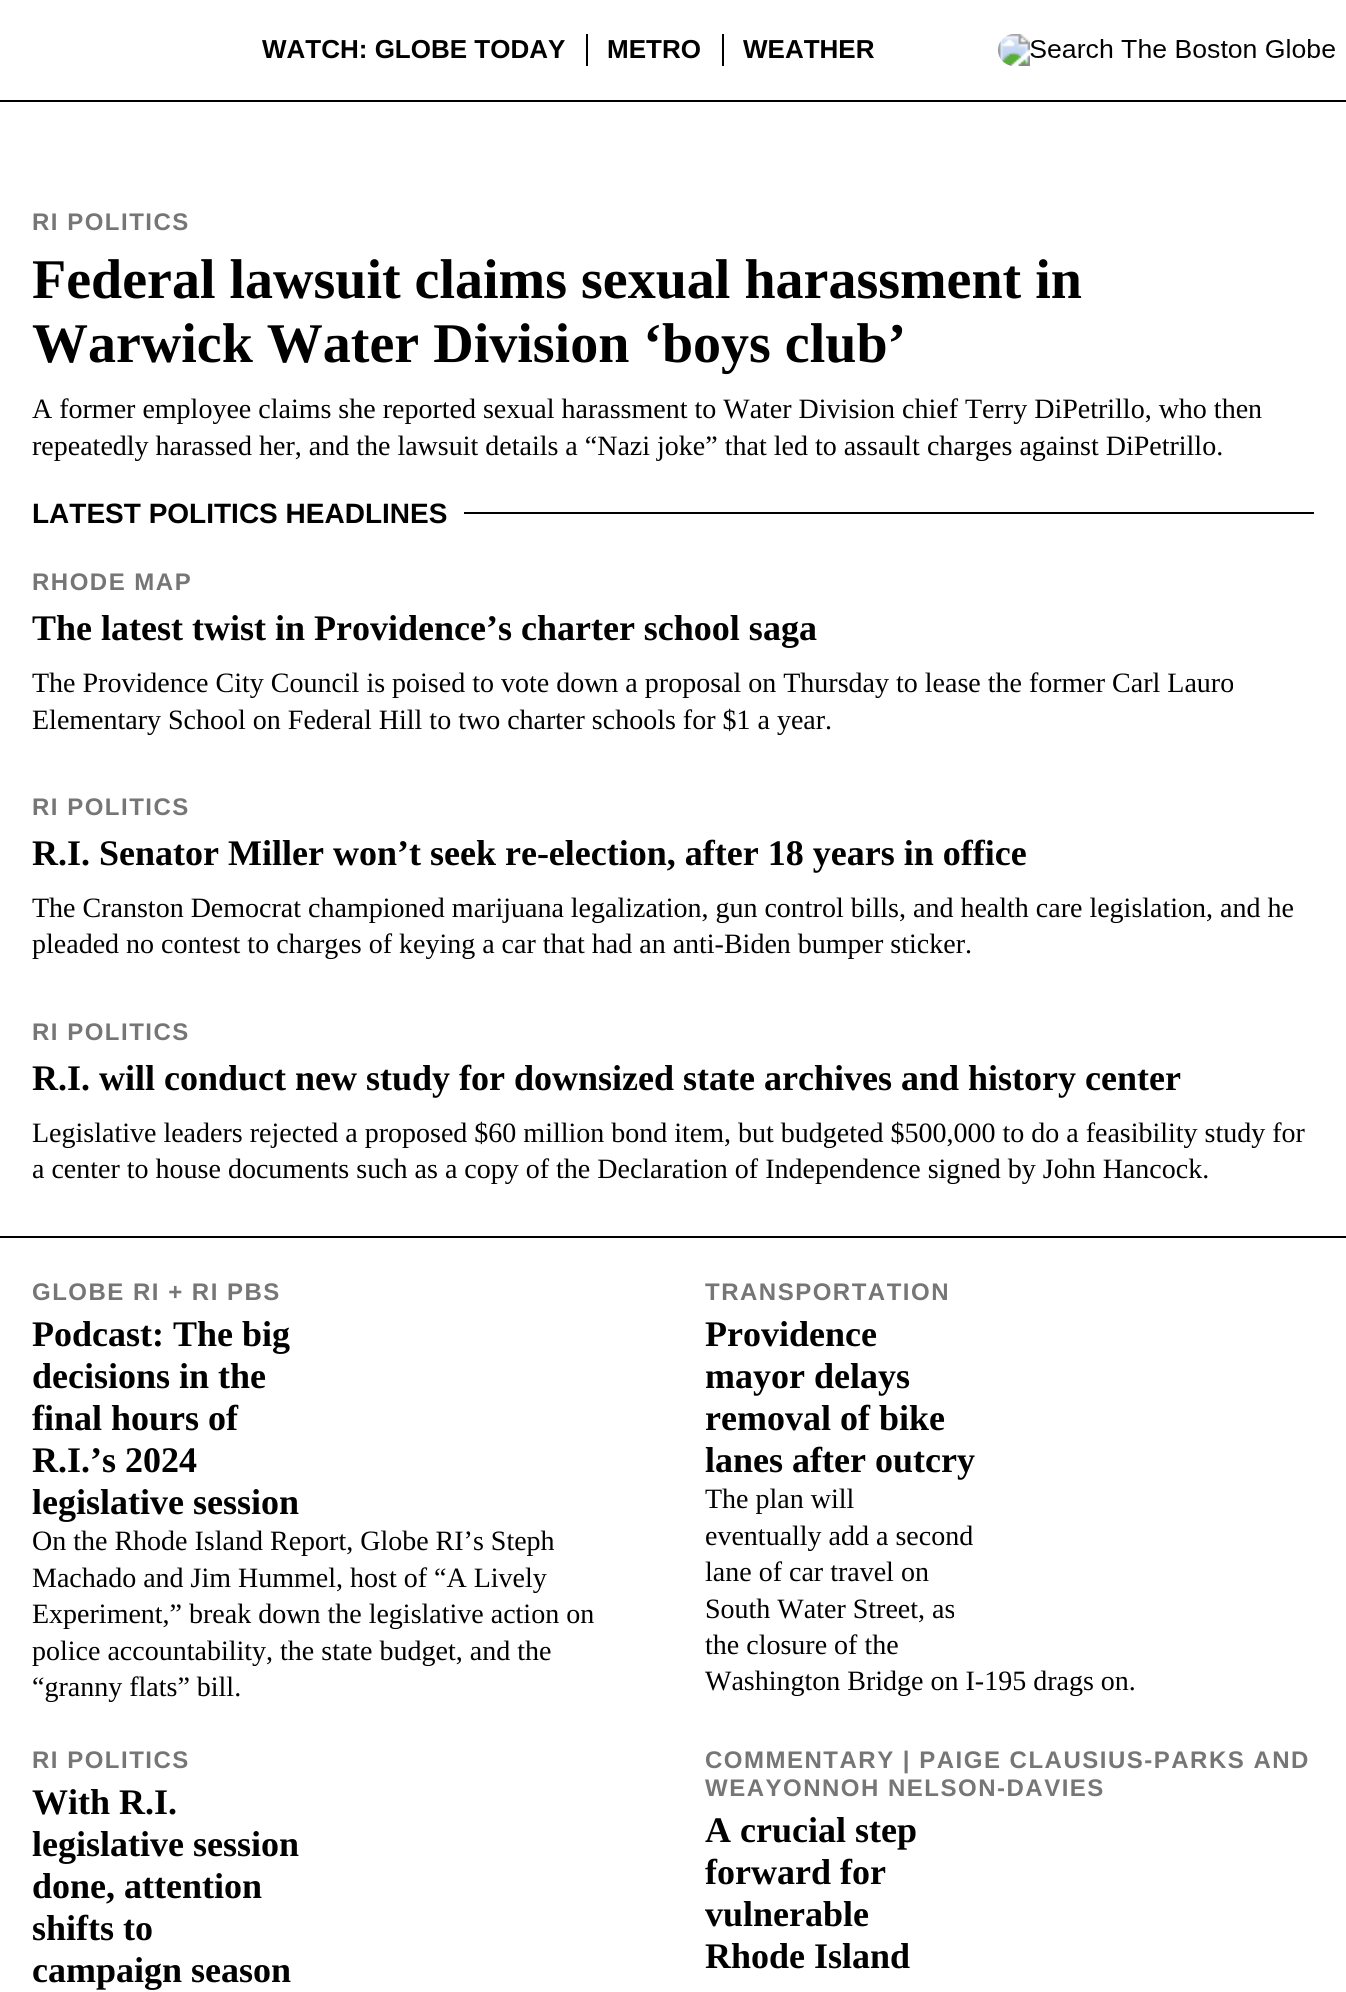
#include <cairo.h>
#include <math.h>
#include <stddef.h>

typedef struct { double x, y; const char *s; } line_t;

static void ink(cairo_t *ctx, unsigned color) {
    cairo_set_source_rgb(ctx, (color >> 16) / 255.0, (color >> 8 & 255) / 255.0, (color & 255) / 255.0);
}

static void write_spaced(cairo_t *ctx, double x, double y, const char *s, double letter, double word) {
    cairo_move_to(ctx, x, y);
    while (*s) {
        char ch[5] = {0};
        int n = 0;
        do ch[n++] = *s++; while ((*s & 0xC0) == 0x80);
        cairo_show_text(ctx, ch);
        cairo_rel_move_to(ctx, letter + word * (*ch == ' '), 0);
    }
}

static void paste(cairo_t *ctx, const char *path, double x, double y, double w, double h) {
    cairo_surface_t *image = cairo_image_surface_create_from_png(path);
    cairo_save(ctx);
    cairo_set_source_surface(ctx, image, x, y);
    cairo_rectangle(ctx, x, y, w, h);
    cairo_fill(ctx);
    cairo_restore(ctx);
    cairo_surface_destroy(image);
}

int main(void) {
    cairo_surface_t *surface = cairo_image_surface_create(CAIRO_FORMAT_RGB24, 1346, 1992);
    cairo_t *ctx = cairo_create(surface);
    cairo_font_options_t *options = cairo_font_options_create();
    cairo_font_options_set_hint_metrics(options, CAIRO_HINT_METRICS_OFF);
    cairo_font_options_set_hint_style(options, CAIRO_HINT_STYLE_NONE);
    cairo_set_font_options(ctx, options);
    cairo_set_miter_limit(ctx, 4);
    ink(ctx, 0xFFFFFF);
    cairo_paint(ctx);
    ink(ctx, 0x000000);
    cairo_rectangle(ctx, 0, 100, 1346, 2);
    cairo_fill(ctx);
    cairo_select_font_face(ctx, "Liberation Sans", CAIRO_FONT_SLANT_NORMAL, CAIRO_FONT_WEIGHT_BOLD);
    cairo_set_font_size(ctx, 26);
    cairo_move_to(ctx, 262, 58);
    cairo_show_text(ctx, "WATCH: GLOBE TODAY");
    cairo_rectangle(ctx, 586, 34, 2, 32);
    cairo_fill(ctx);
    cairo_move_to(ctx, 607, 58);
    cairo_show_text(ctx, "METRO");
    cairo_rectangle(ctx, 722, 34, 2, 32);
    cairo_fill(ctx);
    cairo_move_to(ctx, 743, 58);
    cairo_show_text(ctx, "WEATHER");
    paste(ctx, "media/1.png", 998, 34, 337, 32);
    cairo_set_font_size(ctx, 24);
    ink(ctx, 0x767676);
    write_spaced(ctx, 32, 230, "RI POLITICS", 1.5, 0);
    cairo_select_font_face(ctx, "Liberation Serif", CAIRO_FONT_SLANT_NORMAL, CAIRO_FONT_WEIGHT_BOLD);
    cairo_set_font_size(ctx, 56);
    ink(ctx, 0x000000);
    cairo_move_to(ctx, 32, 298);
    cairo_show_text(ctx, "Federal lawsuit claims sexual harassment in");
    cairo_move_to(ctx, 32, 362);
    cairo_show_text(ctx, "Warwick Water Division ‘boys club’");
    cairo_select_font_face(ctx, "Liberation Serif", CAIRO_FONT_SLANT_NORMAL, CAIRO_FONT_WEIGHT_NORMAL);
    cairo_set_font_size(ctx, 28);
    cairo_move_to(ctx, 32, 418);
    cairo_show_text(ctx, "A former employee claims she reported sexual harassment to Water Division chief Terry DiPetrillo, who then");
    cairo_move_to(ctx, 32, 455);
    cairo_show_text(ctx, "repeatedly harassed her, and the lawsuit details a “Nazi joke” that led to assault charges against DiPetrillo.");
    cairo_select_font_face(ctx, "Liberation Sans", CAIRO_FONT_SLANT_NORMAL, CAIRO_FONT_WEIGHT_BOLD);
    cairo_move_to(ctx, 32, 523);
    cairo_show_text(ctx, "LATEST POLITICS HEADLINES");
    cairo_rectangle(ctx, 464, 512, 850, 2);
    cairo_fill(ctx);
    cairo_set_font_size(ctx, 24);
    ink(ctx, 0x767676);
    write_spaced(ctx, 32, 590, "RHODE MAP", 1.5, 0);
    cairo_select_font_face(ctx, "Liberation Serif", CAIRO_FONT_SLANT_NORMAL, CAIRO_FONT_WEIGHT_BOLD);
    cairo_set_font_size(ctx, 36);
    ink(ctx, 0x000000);
    cairo_move_to(ctx, 32, 640);
    cairo_show_text(ctx, "The latest twist in Providence’s charter school saga");
    cairo_select_font_face(ctx, "Liberation Serif", CAIRO_FONT_SLANT_NORMAL, CAIRO_FONT_WEIGHT_NORMAL);
    cairo_set_font_size(ctx, 28);
    cairo_move_to(ctx, 32, 692);
    cairo_show_text(ctx, "The Providence City Council is poised to vote down a proposal on Thursday to lease the former Carl Lauro");
    cairo_move_to(ctx, 32, 729);
    cairo_show_text(ctx, "Elementary School on Federal Hill to two charter schools for $1 a year.");
    cairo_select_font_face(ctx, "Liberation Sans", CAIRO_FONT_SLANT_NORMAL, CAIRO_FONT_WEIGHT_BOLD);
    cairo_set_font_size(ctx, 24);
    ink(ctx, 0x767676);
    write_spaced(ctx, 32, 815, "RI POLITICS", 1.5, 0);
    cairo_select_font_face(ctx, "Liberation Serif", CAIRO_FONT_SLANT_NORMAL, CAIRO_FONT_WEIGHT_BOLD);
    cairo_set_font_size(ctx, 36);
    ink(ctx, 0x000000);
    cairo_move_to(ctx, 32, 865);
    cairo_show_text(ctx, "R.I. Senator Miller won’t seek re-election, after 18 years in office");
    cairo_select_font_face(ctx, "Liberation Serif", CAIRO_FONT_SLANT_NORMAL, CAIRO_FONT_WEIGHT_NORMAL);
    cairo_set_font_size(ctx, 28);
    cairo_move_to(ctx, 32, 917);
    cairo_show_text(ctx, "The Cranston Democrat championed marijuana legalization, gun control bills, and health care legislation, and he");
    cairo_move_to(ctx, 32, 953);
    cairo_show_text(ctx, "pleaded no contest to charges of keying a car that had an anti-Biden bumper sticker.");
    cairo_select_font_face(ctx, "Liberation Sans", CAIRO_FONT_SLANT_NORMAL, CAIRO_FONT_WEIGHT_BOLD);
    cairo_set_font_size(ctx, 24);
    ink(ctx, 0x767676);
    write_spaced(ctx, 32, 1040, "RI POLITICS", 1.5, 0);
    cairo_select_font_face(ctx, "Liberation Serif", CAIRO_FONT_SLANT_NORMAL, CAIRO_FONT_WEIGHT_BOLD);
    cairo_set_font_size(ctx, 36);
    ink(ctx, 0x000000);
    cairo_move_to(ctx, 32, 1090);
    cairo_show_text(ctx, "R.I. will conduct new study for downsized state archives and history center");
    cairo_select_font_face(ctx, "Liberation Serif", CAIRO_FONT_SLANT_NORMAL, CAIRO_FONT_WEIGHT_NORMAL);
    cairo_set_font_size(ctx, 28);
    cairo_move_to(ctx, 32, 1142);
    cairo_show_text(ctx, "Legislative leaders rejected a proposed $60 million bond item, but budgeted $500,000 to do a feasibility study for");
    cairo_move_to(ctx, 32, 1178);
    cairo_show_text(ctx, "a center to house documents such as a copy of the Declaration of Independence signed by John Hancock.");
    cairo_rectangle(ctx, 0, 1236, 1346, 2);
    cairo_fill(ctx);
    cairo_select_font_face(ctx, "Liberation Sans", CAIRO_FONT_SLANT_NORMAL, CAIRO_FONT_WEIGHT_BOLD);
    cairo_set_font_size(ctx, 24);
    ink(ctx, 0x767676);
    write_spaced(ctx, 32, 1300, "GLOBE RI + RI PBS", 1.5, 0);
    cairo_select_font_face(ctx, "Liberation Serif", CAIRO_FONT_SLANT_NORMAL, CAIRO_FONT_WEIGHT_BOLD);
    cairo_set_font_size(ctx, 36);
    ink(ctx, 0x000000);
    {
        static const line_t items[] = {
            {32, 1346, "Podcast: The big"},
            {32, 1388, "decisions in the"},
            {32, 1430, "final hours of"},
            {32, 1472, "R.I.’s 2024"},
            {32, 1514, "legislative session"},
        };
        for (size_t i = 0; i < sizeof items / sizeof *items; i++) {
            cairo_move_to(ctx, items[i].x, items[i].y);
            cairo_show_text(ctx, items[i].s);
        }
    }
    cairo_select_font_face(ctx, "Liberation Serif", CAIRO_FONT_SLANT_NORMAL, CAIRO_FONT_WEIGHT_NORMAL);
    cairo_set_font_size(ctx, 28);
    {
        static const line_t items[] = {
            {32, 1550, "On the Rhode Island Report, Globe RI’s Steph"},
            {32, 1587, "Machado and Jim Hummel, host of “A Lively"},
            {32, 1623, "Experiment,” break down the legislative action on"},
            {32, 1660, "police accountability, the state budget, and the"},
            {32, 1696, "“granny flats” bill."},
        };
        for (size_t i = 0; i < sizeof items / sizeof *items; i++) {
            cairo_move_to(ctx, items[i].x, items[i].y);
            cairo_show_text(ctx, items[i].s);
        }
    }
    cairo_select_font_face(ctx, "Liberation Sans", CAIRO_FONT_SLANT_NORMAL, CAIRO_FONT_WEIGHT_BOLD);
    cairo_set_font_size(ctx, 24);
    ink(ctx, 0x767676);
    write_spaced(ctx, 705, 1300, "TRANSPORTATION", 1.5, 0);
    cairo_select_font_face(ctx, "Liberation Serif", CAIRO_FONT_SLANT_NORMAL, CAIRO_FONT_WEIGHT_BOLD);
    cairo_set_font_size(ctx, 36);
    ink(ctx, 0x000000);
    {
        static const line_t items[] = {
            {705, 1346, "Providence"},
            {705, 1388, "mayor delays"},
            {705, 1430, "removal of bike"},
            {705, 1472, "lanes after outcry"},
        };
        for (size_t i = 0; i < sizeof items / sizeof *items; i++) {
            cairo_move_to(ctx, items[i].x, items[i].y);
            cairo_show_text(ctx, items[i].s);
        }
    }
    cairo_select_font_face(ctx, "Liberation Serif", CAIRO_FONT_SLANT_NORMAL, CAIRO_FONT_WEIGHT_NORMAL);
    cairo_set_font_size(ctx, 28);
    {
        static const line_t items[] = {
            {705, 1508, "The plan will"},
            {705, 1545, "eventually add a second"},
            {705, 1581, "lane of car travel on"},
            {705, 1618, "South Water Street, as"},
            {705, 1654, "the closure of the"},
            {705, 1690, "Washington Bridge on I-195 drags on."},
        };
        for (size_t i = 0; i < sizeof items / sizeof *items; i++) {
            cairo_move_to(ctx, items[i].x, items[i].y);
            cairo_show_text(ctx, items[i].s);
        }
    }
    cairo_select_font_face(ctx, "Liberation Sans", CAIRO_FONT_SLANT_NORMAL, CAIRO_FONT_WEIGHT_BOLD);
    cairo_set_font_size(ctx, 24);
    ink(ctx, 0x767676);
    write_spaced(ctx, 32, 1768, "RI POLITICS", 1.5, 0);
    cairo_select_font_face(ctx, "Liberation Serif", CAIRO_FONT_SLANT_NORMAL, CAIRO_FONT_WEIGHT_BOLD);
    cairo_set_font_size(ctx, 36);
    ink(ctx, 0x000000);
    {
        static const line_t items[] = {
            {32, 1814, "With R.I."},
            {32, 1856, "legislative session"},
            {32, 1898, "done, attention"},
            {32, 1940, "shifts to"},
            {32, 1982, "campaign season"},
        };
        for (size_t i = 0; i < sizeof items / sizeof *items; i++) {
            cairo_move_to(ctx, items[i].x, items[i].y);
            cairo_show_text(ctx, items[i].s);
        }
    }
    cairo_select_font_face(ctx, "Liberation Sans", CAIRO_FONT_SLANT_NORMAL, CAIRO_FONT_WEIGHT_BOLD);
    cairo_set_font_size(ctx, 24);
    ink(ctx, 0x767676);
    write_spaced(ctx, 705, 1768, "COMMENTARY | PAIGE CLAUSIUS-PARKS AND", 1.5, 0);
    write_spaced(ctx, 705, 1796, "WEAYONNOH NELSON-DAVIES", 1.5, 0);
    cairo_select_font_face(ctx, "Liberation Serif", CAIRO_FONT_SLANT_NORMAL, CAIRO_FONT_WEIGHT_BOLD);
    cairo_set_font_size(ctx, 36);
    ink(ctx, 0x000000);
    {
        static const line_t items[] = {
            {705, 1842, "A crucial step"},
            {705, 1884, "forward for"},
            {705, 1926, "vulnerable"},
            {705, 1968, "Rhode Island"},
        };
        for (size_t i = 0; i < sizeof items / sizeof *items; i++) {
            cairo_move_to(ctx, items[i].x, items[i].y);
            cairo_show_text(ctx, items[i].s);
        }
    }
    cairo_surface_write_to_png(surface, "image.png");
    cairo_font_options_destroy(options);
    cairo_destroy(ctx);
    cairo_surface_destroy(surface);
    return 0;
}
